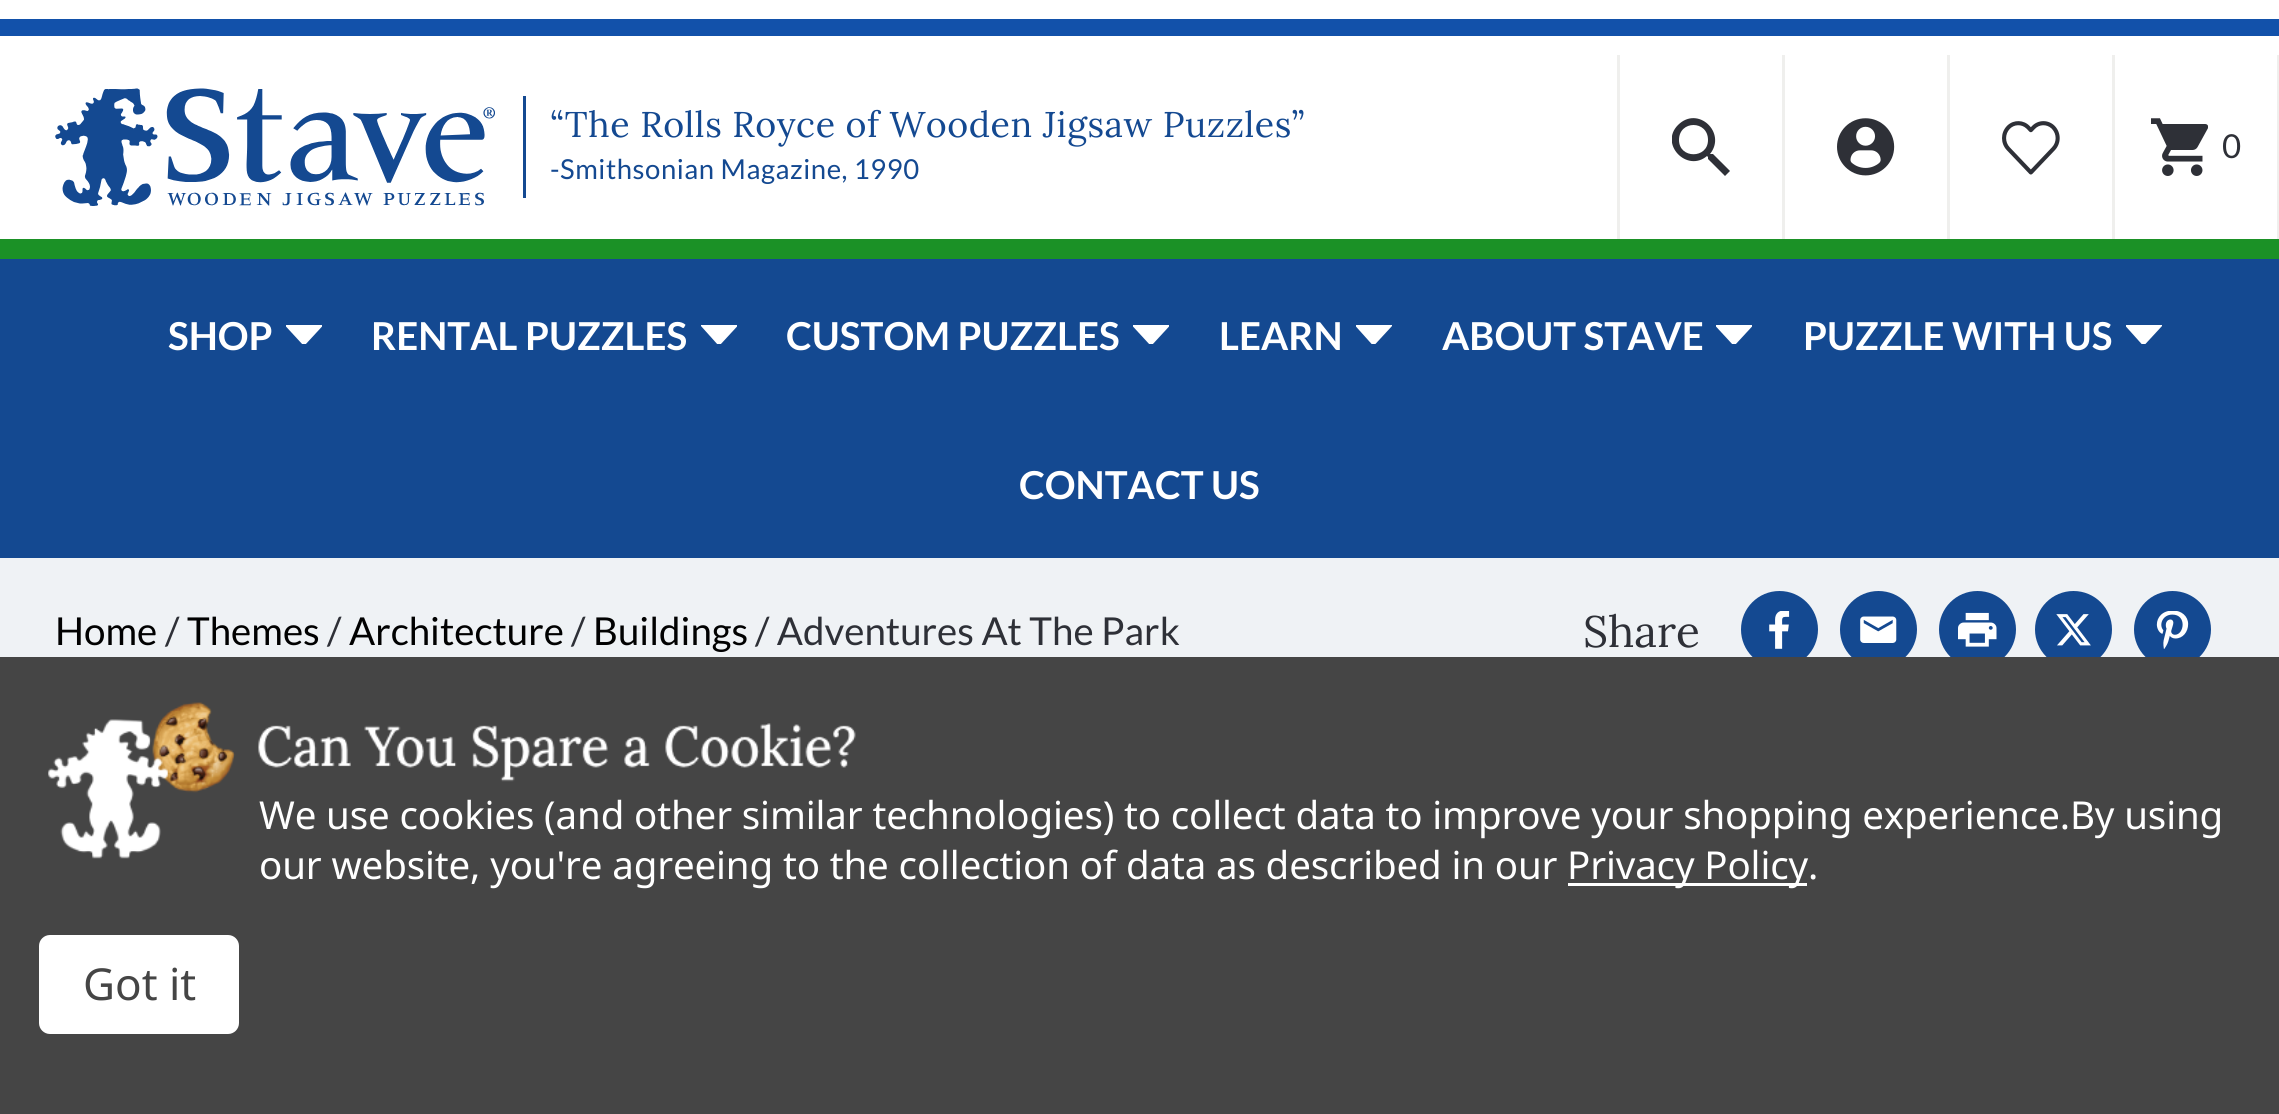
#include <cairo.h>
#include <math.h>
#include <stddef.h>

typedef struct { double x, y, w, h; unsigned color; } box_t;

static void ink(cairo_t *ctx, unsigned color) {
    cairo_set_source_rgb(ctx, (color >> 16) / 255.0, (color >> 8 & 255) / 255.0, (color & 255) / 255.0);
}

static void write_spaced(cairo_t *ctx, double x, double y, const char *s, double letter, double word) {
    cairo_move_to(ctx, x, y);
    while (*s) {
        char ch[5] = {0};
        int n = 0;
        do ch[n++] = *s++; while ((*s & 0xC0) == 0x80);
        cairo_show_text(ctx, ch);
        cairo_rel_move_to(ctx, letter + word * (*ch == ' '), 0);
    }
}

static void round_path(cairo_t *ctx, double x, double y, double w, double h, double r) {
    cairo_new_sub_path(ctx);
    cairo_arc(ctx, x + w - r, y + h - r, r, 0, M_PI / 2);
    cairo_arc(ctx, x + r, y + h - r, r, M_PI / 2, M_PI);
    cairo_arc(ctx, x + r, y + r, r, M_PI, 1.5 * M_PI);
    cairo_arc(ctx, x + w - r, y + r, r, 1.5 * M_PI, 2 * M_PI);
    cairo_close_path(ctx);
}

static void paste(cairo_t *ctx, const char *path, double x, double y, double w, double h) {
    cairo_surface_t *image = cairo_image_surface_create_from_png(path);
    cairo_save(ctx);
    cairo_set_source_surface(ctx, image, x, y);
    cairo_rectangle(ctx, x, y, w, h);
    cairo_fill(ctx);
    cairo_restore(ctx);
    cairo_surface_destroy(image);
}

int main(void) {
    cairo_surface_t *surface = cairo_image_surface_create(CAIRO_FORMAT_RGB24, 2279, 1114);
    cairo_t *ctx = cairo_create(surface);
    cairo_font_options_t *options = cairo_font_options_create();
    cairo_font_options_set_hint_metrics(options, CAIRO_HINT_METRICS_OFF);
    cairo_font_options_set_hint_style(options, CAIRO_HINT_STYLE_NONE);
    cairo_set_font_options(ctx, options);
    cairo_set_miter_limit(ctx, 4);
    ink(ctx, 0xFFFFFF);
    cairo_paint(ctx);
    {
        static const box_t items[] = {
            {0, 19, 2277, 14, 0x1251AA},
            {2277, 19, 2, 17, 0x1251AA},
            {0, 33, 2279, 3, 0x1251AA},
            {0, 239, 2279, 20, 0x1B9126},
            {1617, 55, 3, 184, 0xEFEFED},
        };
        for (size_t i = 0; i < sizeof items / sizeof *items; i++) {
            ink(ctx, items[i].color);
            cairo_rectangle(ctx, items[i].x, items[i].y, items[i].w, items[i].h);
            cairo_fill(ctx);
        }
    }
    paste(ctx, "media/1.png", 55, 88, 440, 118);
    ink(ctx, 0x144991);
    cairo_rectangle(ctx, 523, 96, 3, 102);
    cairo_fill(ctx);
    cairo_select_font_face(ctx, "Lora", CAIRO_FONT_SLANT_NORMAL, CAIRO_FONT_WEIGHT_NORMAL);
    cairo_set_font_size(ctx, 35.75);
    write_spaced(ctx, 550, 137, "“The Rolls Royce of Wooden Jigsaw Puzzles”", 0.55, 0);
    cairo_select_font_face(ctx, "Lato", CAIRO_FONT_SLANT_NORMAL, CAIRO_FONT_WEIGHT_NORMAL);
    cairo_set_font_size(ctx, 27.5);
    write_spaced(ctx, 550, 179, "-Smithsonian Magazine, 1990", 0.55, 0);
    ink(ctx, 0xEFEFED);
    cairo_rectangle(ctx, 1782, 55, 3, 184);
    cairo_fill(ctx);
    cairo_save(ctx);
    cairo_rectangle(ctx, 1672, 118, 58, 58);
    cairo_clip(ctx);
    ink(ctx, 0x2E3037);
    cairo_new_path(ctx);
    cairo_move_to(ctx, 1730, 171);
    cairo_line_to(ctx, 1725, 176);
    cairo_line_to(ctx, 1708, 159);
    cairo_line_to(ctx, 1708, 157);
    cairo_line_to(ctx, 1707, 156);
    cairo_curve_to(ctx, 1687, 173, 1659, 144, 1678, 125);
    cairo_curve_to(ctx, 1698, 105, 1727, 133, 1710, 154);
    cairo_line_to(ctx, 1711, 154);
    cairo_line_to(ctx, 1713, 154);
    cairo_close_path(ctx);
    cairo_move_to(ctx, 1708, 140);
    cairo_curve_to(ctx, 1708, 120, 1679, 120, 1679, 140);
    cairo_curve_to(ctx, 1679, 159, 1708, 159, 1708, 140);
    cairo_close_path(ctx);
    cairo_fill(ctx);
    cairo_restore(ctx);
    cairo_rectangle(ctx, 1947, 55, 3, 184);
    cairo_fill(ctx);
    paste(ctx, "media/2.png", 1837, 118, 58, 58);
    cairo_rectangle(ctx, 2112, 55, 3, 184);
    cairo_fill(ctx);
    paste(ctx, "media/3.png", 2002, 121, 58, 54);
    cairo_rectangle(ctx, 2277, 55, 2, 184);
    cairo_fill(ctx);
    paste(ctx, "media/4.png", 2151, 118, 57, 58);
    cairo_set_font_size(ctx, 33);
    ink(ctx, 0x2E3037);
    cairo_move_to(ctx, 2222, 158);
    cairo_show_text(ctx, "0");
    ink(ctx, 0x144991);
    cairo_rectangle(ctx, 0, 259, 2279, 299);
    cairo_fill(ctx);
    cairo_select_font_face(ctx, "Lato", CAIRO_FONT_SLANT_NORMAL, CAIRO_FONT_WEIGHT_BOLD);
    cairo_set_font_size(ctx, 38.5);
    ink(ctx, 0xFFFFFF);
    cairo_move_to(ctx, 168, 350);
    cairo_show_text(ctx, "SHOP");
    cairo_save(ctx);
    cairo_rectangle(ctx, 286, 325, 36, 19);
    cairo_clip(ctx);
    cairo_new_path(ctx);
    cairo_move_to(ctx, 286, 324.5);
    cairo_line_to(ctx, 304, 344);
    cairo_line_to(ctx, 322, 324.5);
    cairo_close_path(ctx);
    cairo_fill_preserve(ctx);
    cairo_set_line_width(ctx, 2.8);
    cairo_stroke(ctx);
    cairo_restore(ctx);
    cairo_move_to(ctx, 371, 350);
    cairo_show_text(ctx, "RENTAL PUZZLES");
    cairo_save(ctx);
    cairo_rectangle(ctx, 701, 325, 36, 19);
    cairo_clip(ctx);
    cairo_new_path(ctx);
    cairo_move_to(ctx, 701.5, 324.5);
    cairo_line_to(ctx, 719, 344);
    cairo_line_to(ctx, 737, 324.5);
    cairo_close_path(ctx);
    cairo_fill_preserve(ctx);
    cairo_set_line_width(ctx, 2.8);
    cairo_stroke(ctx);
    cairo_restore(ctx);
    cairo_move_to(ctx, 786, 350);
    cairo_show_text(ctx, "CUSTOM PUZZLES");
    cairo_save(ctx);
    cairo_rectangle(ctx, 1133, 325, 36, 19);
    cairo_clip(ctx);
    cairo_new_path(ctx);
    cairo_move_to(ctx, 1133, 324.5);
    cairo_line_to(ctx, 1151, 344);
    cairo_line_to(ctx, 1169, 324.5);
    cairo_close_path(ctx);
    cairo_fill_preserve(ctx);
    cairo_set_line_width(ctx, 2.8);
    cairo_stroke(ctx);
    cairo_restore(ctx);
    cairo_move_to(ctx, 1219, 350);
    cairo_show_text(ctx, "LEARN");
    cairo_save(ctx);
    cairo_rectangle(ctx, 1356, 325, 36, 19);
    cairo_clip(ctx);
    cairo_new_path(ctx);
    cairo_move_to(ctx, 1356, 324.5);
    cairo_line_to(ctx, 1373.5, 344);
    cairo_line_to(ctx, 1391.5, 324.5);
    cairo_close_path(ctx);
    cairo_fill_preserve(ctx);
    cairo_set_line_width(ctx, 2.8);
    cairo_stroke(ctx);
    cairo_restore(ctx);
    cairo_move_to(ctx, 1442, 350);
    cairo_show_text(ctx, "ABOUT STAVE");
    cairo_save(ctx);
    cairo_rectangle(ctx, 1716, 325, 36, 19);
    cairo_clip(ctx);
    cairo_new_path(ctx);
    cairo_move_to(ctx, 1716, 324.5);
    cairo_line_to(ctx, 1734, 344);
    cairo_line_to(ctx, 1752, 324.5);
    cairo_close_path(ctx);
    cairo_fill_preserve(ctx);
    cairo_set_line_width(ctx, 2.8);
    cairo_stroke(ctx);
    cairo_restore(ctx);
    cairo_move_to(ctx, 1803, 350);
    cairo_show_text(ctx, "PUZZLE WITH US");
    cairo_save(ctx);
    cairo_rectangle(ctx, 2126, 325, 36, 19);
    cairo_clip(ctx);
    cairo_new_path(ctx);
    cairo_move_to(ctx, 2126, 324.5);
    cairo_line_to(ctx, 2143.5, 344);
    cairo_line_to(ctx, 2161.5, 324.5);
    cairo_close_path(ctx);
    cairo_fill_preserve(ctx);
    cairo_set_line_width(ctx, 2.8);
    cairo_stroke(ctx);
    cairo_restore(ctx);
    cairo_move_to(ctx, 1019, 499);
    cairo_show_text(ctx, "CONTACT US");
    ink(ctx, 0xEFF2F5);
    cairo_rectangle(ctx, 0, 558, 2279, 99);
    cairo_fill(ctx);
    cairo_select_font_face(ctx, "Lato", CAIRO_FONT_SLANT_NORMAL, CAIRO_FONT_WEIGHT_NORMAL);
    ink(ctx, 0x010101);
    cairo_move_to(ctx, 55, 645);
    cairo_show_text(ctx, "Home");
    ink(ctx, 0x2E3037);
    cairo_move_to(ctx, 165, 645);
    cairo_show_text(ctx, "/");
    ink(ctx, 0x010101);
    cairo_move_to(ctx, 187, 645);
    cairo_show_text(ctx, "Themes");
    ink(ctx, 0x2E3037);
    cairo_move_to(ctx, 327, 645);
    cairo_show_text(ctx, "/");
    ink(ctx, 0x010101);
    cairo_move_to(ctx, 349, 645);
    cairo_show_text(ctx, "Architecture");
    ink(ctx, 0x2E3037);
    cairo_move_to(ctx, 571, 645);
    cairo_show_text(ctx, "/");
    ink(ctx, 0x010101);
    cairo_move_to(ctx, 593, 645);
    cairo_show_text(ctx, "Buildings");
    ink(ctx, 0x2E3037);
    cairo_move_to(ctx, 755, 645);
    cairo_show_text(ctx, "/ Adventures At The Park");
    cairo_select_font_face(ctx, "Lora", CAIRO_FONT_SLANT_NORMAL, CAIRO_FONT_WEIGHT_NORMAL);
    cairo_set_font_size(ctx, 44);
    cairo_move_to(ctx, 1583, 647);
    cairo_show_text(ctx, "Share");
    ink(ctx, 0x144991);
    cairo_new_path(ctx);
    cairo_arc(ctx, 1779.5, 629.5, 38.5, 0, 2 * M_PI);
    cairo_fill(ctx);
    paste(ctx, "media/5.png", 1769, 611, 21, 38);
    cairo_arc(ctx, 1878.5, 629.5, 38.5, 0, 2 * M_PI);
    cairo_fill(ctx);
    paste(ctx, "media/6.png", 1860, 616, 37, 27);
    cairo_arc(ctx, 1977.5, 629.5, 38.5, 0, 2 * M_PI);
    cairo_fill(ctx);
    paste(ctx, "media/7.png", 1958, 612, 39, 35);
    cairo_arc(ctx, 2073.5, 629.5, 38.5, 0, 2 * M_PI);
    cairo_fill(ctx);
    paste(ctx, "media/8.png", 2056, 614, 35, 32);
    cairo_arc(ctx, 2172.5, 629.5, 38.5, 0, 2 * M_PI);
    cairo_fill(ctx);
    paste(ctx, "media/9.png", 2156, 611, 33, 38);
    ink(ctx, 0x454545);
    cairo_rectangle(ctx, 0, 657, 2279, 457);
    cairo_fill(ctx);
    paste(ctx, "media/10.png", 48, 702, 808, 157);
    cairo_select_font_face(ctx, "Noto Sans", CAIRO_FONT_SLANT_NORMAL, CAIRO_FONT_WEIGHT_NORMAL);
    cairo_set_font_size(ctx, 38.5);
    ink(ctx, 0xFFFFFF);
    write_spaced(ctx, 259, 829, "We use cookies (and other similar technologies) to collect data to improve your shopping experience.By using", -0.14, 0);
    write_spaced(ctx, 259, 879, "our website, you're agreeing to the collection of data as described in our", -0.14, 0);
    cairo_rectangle(ctx, 1568, 883, 239, 3);
    cairo_fill(ctx);
    write_spaced(ctx, 1567, 879, "Privacy Policy.", -0.14, 0);
    round_path(ctx, 39, 935, 200, 99, 11);
    cairo_fill(ctx);
    cairo_set_font_size(ctx, 44);
    ink(ctx, 0x454545);
    cairo_move_to(ctx, 83, 1000);
    cairo_show_text(ctx, "Got it");
    cairo_surface_write_to_png(surface, "image.png");
    cairo_font_options_destroy(options);
    cairo_destroy(ctx);
    cairo_surface_destroy(surface);
    return 0;
}
